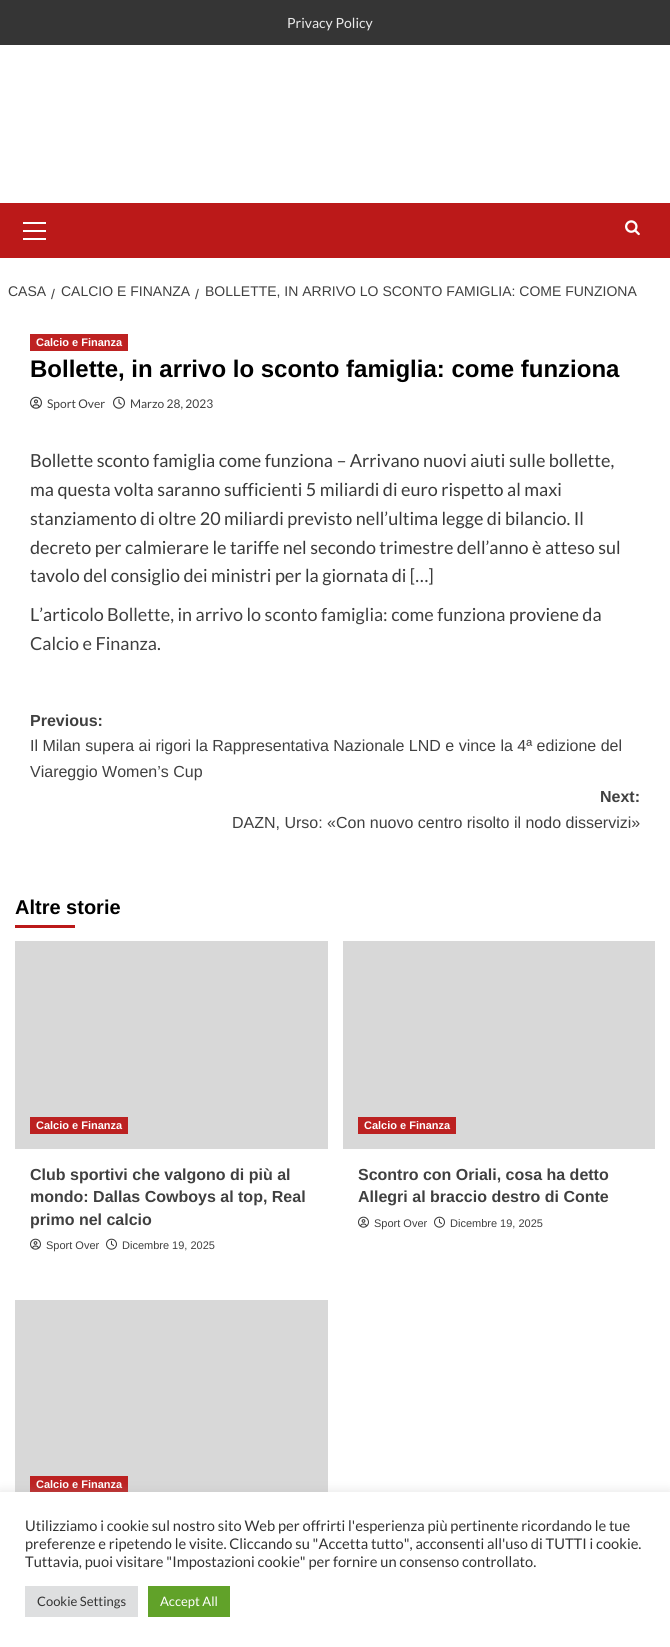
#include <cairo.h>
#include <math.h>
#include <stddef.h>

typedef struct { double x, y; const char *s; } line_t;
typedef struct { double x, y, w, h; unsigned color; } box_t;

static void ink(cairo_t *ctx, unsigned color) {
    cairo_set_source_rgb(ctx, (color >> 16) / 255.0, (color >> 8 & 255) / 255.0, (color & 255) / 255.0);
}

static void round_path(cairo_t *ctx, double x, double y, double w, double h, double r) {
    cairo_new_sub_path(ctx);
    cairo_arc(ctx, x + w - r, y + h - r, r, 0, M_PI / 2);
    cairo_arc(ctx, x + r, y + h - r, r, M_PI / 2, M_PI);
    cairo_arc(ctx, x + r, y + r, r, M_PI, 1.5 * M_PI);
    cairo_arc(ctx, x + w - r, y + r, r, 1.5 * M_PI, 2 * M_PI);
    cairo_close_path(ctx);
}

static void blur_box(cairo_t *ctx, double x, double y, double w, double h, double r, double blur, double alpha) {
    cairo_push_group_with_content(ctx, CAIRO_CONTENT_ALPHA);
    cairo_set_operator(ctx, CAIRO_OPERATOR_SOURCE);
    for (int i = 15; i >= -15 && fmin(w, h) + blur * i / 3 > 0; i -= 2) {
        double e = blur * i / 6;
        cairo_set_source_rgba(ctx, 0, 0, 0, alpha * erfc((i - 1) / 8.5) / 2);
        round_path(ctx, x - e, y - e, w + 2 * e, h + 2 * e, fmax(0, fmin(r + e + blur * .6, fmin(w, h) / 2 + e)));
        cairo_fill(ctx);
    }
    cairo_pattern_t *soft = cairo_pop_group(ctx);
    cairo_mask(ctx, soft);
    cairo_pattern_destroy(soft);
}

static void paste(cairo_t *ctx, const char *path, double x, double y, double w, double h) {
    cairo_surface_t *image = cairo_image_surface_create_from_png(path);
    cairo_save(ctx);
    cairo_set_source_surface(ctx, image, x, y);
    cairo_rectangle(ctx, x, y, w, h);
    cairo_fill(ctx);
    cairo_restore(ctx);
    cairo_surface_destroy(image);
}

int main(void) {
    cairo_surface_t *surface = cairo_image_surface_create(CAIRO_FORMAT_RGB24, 670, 1647);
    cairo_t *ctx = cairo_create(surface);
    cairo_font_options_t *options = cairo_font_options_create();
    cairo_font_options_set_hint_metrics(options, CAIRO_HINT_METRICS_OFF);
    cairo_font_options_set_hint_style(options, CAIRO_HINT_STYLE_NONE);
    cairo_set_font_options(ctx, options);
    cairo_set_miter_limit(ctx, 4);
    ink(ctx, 0xFFFFFF);
    cairo_paint(ctx);
    ink(ctx, 0x353535);
    cairo_rectangle(ctx, 0, 0, 670, 45);
    cairo_fill(ctx);
    cairo_select_font_face(ctx, "Lato", CAIRO_FONT_SLANT_NORMAL, CAIRO_FONT_WEIGHT_NORMAL);
    cairo_set_font_size(ctx, 14);
    ink(ctx, 0xEBEBEB);
    cairo_move_to(ctx, 287, 28);
    cairo_show_text(ctx, "Privacy Policy");
    {
        static const box_t items[] = {
            {0, 203, 670, 55, 0xBB1919},
            {23, 230, 23, 2, 0xFFFFFF},
            {23, 222, 23, 2, 0xFFFFFF},
            {23, 238, 23, 2, 0xFFFFFF},
        };
        for (size_t i = 0; i < sizeof items / sizeof *items; i++) {
            ink(ctx, items[i].color);
            cairo_rectangle(ctx, items[i].x, items[i].y, items[i].w, items[i].h);
            cairo_fill(ctx);
        }
    }
    paste(ctx, "media/1.png", 625, 220, 15, 16);
    cairo_select_font_face(ctx, "Liberation Sans", CAIRO_FONT_SLANT_NORMAL, CAIRO_FONT_WEIGHT_NORMAL);
    ink(ctx, 0x404040);
    {
        static const line_t items[] = {
            {8, 296, "CASA"},
            {51, 299, "/"},
            {61, 296, "CALCIO E FINANZA"},
            {195, 299, "/"},
            {205, 296, "BOLLETTE, IN ARRIVO LO SCONTO FAMIGLIA: COME FUNZIONA"},
        };
        for (size_t i = 0; i < sizeof items / sizeof *items; i++) {
            cairo_move_to(ctx, items[i].x, items[i].y);
            cairo_show_text(ctx, items[i].s);
        }
    }
    ink(ctx, 0xBE2222);
    cairo_rectangle(ctx, 30, 334, 98, 17);
    cairo_fill(ctx);
    cairo_select_font_face(ctx, "Liberation Sans", CAIRO_FONT_SLANT_NORMAL, CAIRO_FONT_WEIGHT_BOLD);
    cairo_set_font_size(ctx, 11);
    ink(ctx, 0xFFFFFF);
    cairo_move_to(ctx, 36, 346);
    cairo_show_text(ctx, "Calcio e Finanza");
    cairo_set_font_size(ctx, 24);
    ink(ctx, 0x000000);
    cairo_move_to(ctx, 30, 377);
    cairo_show_text(ctx, "Bollette, in arrivo lo sconto famiglia: come funziona");
    paste(ctx, "media/2.png", 30, 396, 12, 13);
    cairo_select_font_face(ctx, "Lato", CAIRO_FONT_SLANT_NORMAL, CAIRO_FONT_WEIGHT_NORMAL);
    cairo_set_font_size(ctx, 12);
    ink(ctx, 0x404040);
    cairo_move_to(ctx, 47, 408);
    cairo_show_text(ctx, "Sport Over");
    paste(ctx, "media/3.png", 113, 396, 12, 13);
    cairo_move_to(ctx, 130, 408);
    cairo_show_text(ctx, "Marzo 28, 2023");
    cairo_set_font_size(ctx, 18);
    ink(ctx, 0x3A3A3A);
    {
        static const line_t items[] = {
            {30, 467, "Bollette sconto famiglia come funziona – Arrivano nuovi aiuti sulle bollette,"},
            {30, 496, "ma questa volta saranno sufficienti 5 miliardi di euro rispetto al maxi"},
            {30, 525, "stanziamento di oltre 20 miliardi previsto nell’ultima legge di bilancio. Il"},
            {30, 554, "decreto per calmierare le tariffe nel secondo trimestre dell’anno è atteso sul"},
            {30, 582, "tavolo del consiglio dei ministri per la giornata di […]"},
            {30, 621, "L’articolo"},
        };
        for (size_t i = 0; i < sizeof items / sizeof *items; i++) {
            cairo_move_to(ctx, items[i].x, items[i].y);
            cairo_show_text(ctx, items[i].s);
        }
    }
    ink(ctx, 0x404040);
    cairo_move_to(ctx, 107, 621);
    cairo_show_text(ctx, "Bollette, in arrivo lo sconto famiglia: come funziona");
    ink(ctx, 0x3A3A3A);
    cairo_move_to(ctx, 509, 621);
    cairo_show_text(ctx, "proviene da");
    ink(ctx, 0x404040);
    cairo_move_to(ctx, 30, 650);
    cairo_show_text(ctx, "Calcio e Finanza");
    ink(ctx, 0x3A3A3A);
    cairo_move_to(ctx, 157, 650);
    cairo_show_text(ctx, ".");
    cairo_select_font_face(ctx, "Liberation Sans", CAIRO_FONT_SLANT_NORMAL, CAIRO_FONT_WEIGHT_BOLD);
    cairo_set_font_size(ctx, 16);
    ink(ctx, 0x404040);
    cairo_move_to(ctx, 30, 726);
    cairo_show_text(ctx, "Previous:");
    cairo_select_font_face(ctx, "Liberation Sans", CAIRO_FONT_SLANT_NORMAL, CAIRO_FONT_WEIGHT_NORMAL);
    cairo_move_to(ctx, 30, 751);
    cairo_show_text(ctx, "Il Milan supera ai rigori la Rappresentativa Nazionale LND e vince la 4ª edizione del");
    cairo_move_to(ctx, 30, 777);
    cairo_show_text(ctx, "Viareggio Women’s Cup");
    cairo_select_font_face(ctx, "Liberation Sans", CAIRO_FONT_SLANT_NORMAL, CAIRO_FONT_WEIGHT_BOLD);
    cairo_move_to(ctx, 600, 802);
    cairo_show_text(ctx, "Next:");
    cairo_select_font_face(ctx, "Liberation Sans", CAIRO_FONT_SLANT_NORMAL, CAIRO_FONT_WEIGHT_NORMAL);
    cairo_move_to(ctx, 232, 828);
    cairo_show_text(ctx, "DAZN, Urso: «Con nuovo centro risolto il nodo disservizi»");
    cairo_select_font_face(ctx, "Liberation Sans", CAIRO_FONT_SLANT_NORMAL, CAIRO_FONT_WEIGHT_BOLD);
    cairo_set_font_size(ctx, 20);
    ink(ctx, 0x000000);
    cairo_move_to(ctx, 15, 914);
    cairo_show_text(ctx, "Altre storie");
    {
        static const box_t items[] = {
            {15, 925, 60, 3, 0xBB1919},
            {15, 941, 313, 208, 0xD8D8D8},
            {30, 1117, 98, 17, 0xBC2121},
        };
        for (size_t i = 0; i < sizeof items / sizeof *items; i++) {
            ink(ctx, items[i].color);
            cairo_rectangle(ctx, items[i].x, items[i].y, items[i].w, items[i].h);
            cairo_fill(ctx);
        }
    }
    cairo_set_font_size(ctx, 11);
    ink(ctx, 0xFFFFFF);
    cairo_move_to(ctx, 36, 1129);
    cairo_show_text(ctx, "Calcio e Finanza");
    cairo_set_font_size(ctx, 16);
    ink(ctx, 0x404040);
    {
        static const line_t items[] = {
            {30, 1180, "Club sportivi che valgono di più al"},
            {30, 1202, "mondo: Dallas Cowboys al top, Real"},
            {30, 1225, "primo nel calcio"},
        };
        for (size_t i = 0; i < sizeof items / sizeof *items; i++) {
            cairo_move_to(ctx, items[i].x, items[i].y);
            cairo_show_text(ctx, items[i].s);
        }
    }
    paste(ctx, "media/4.png", 30, 1238, 11, 12);
    cairo_select_font_face(ctx, "Liberation Sans", CAIRO_FONT_SLANT_NORMAL, CAIRO_FONT_WEIGHT_NORMAL);
    cairo_set_font_size(ctx, 11);
    cairo_move_to(ctx, 46, 1249);
    cairo_show_text(ctx, "Sport Over");
    paste(ctx, "media/5.png", 106, 1238, 11, 12);
    cairo_move_to(ctx, 122, 1249);
    cairo_show_text(ctx, "Dicembre 19, 2025");
    ink(ctx, 0xD8D8D8);
    cairo_rectangle(ctx, 343, 941, 312, 208);
    cairo_fill(ctx);
    ink(ctx, 0xBC2121);
    cairo_rectangle(ctx, 358, 1117, 98, 17);
    cairo_fill(ctx);
    cairo_select_font_face(ctx, "Liberation Sans", CAIRO_FONT_SLANT_NORMAL, CAIRO_FONT_WEIGHT_BOLD);
    ink(ctx, 0xFFFFFF);
    cairo_move_to(ctx, 364, 1129);
    cairo_show_text(ctx, "Calcio e Finanza");
    cairo_set_font_size(ctx, 16);
    ink(ctx, 0x404040);
    cairo_move_to(ctx, 358, 1180);
    cairo_show_text(ctx, "Scontro con Oriali, cosa ha detto");
    cairo_move_to(ctx, 358, 1202);
    cairo_show_text(ctx, "Allegri al braccio destro di Conte");
    paste(ctx, "media/4.png", 358, 1216, 11, 12);
    cairo_select_font_face(ctx, "Liberation Sans", CAIRO_FONT_SLANT_NORMAL, CAIRO_FONT_WEIGHT_NORMAL);
    cairo_set_font_size(ctx, 11);
    cairo_move_to(ctx, 374, 1227);
    cairo_show_text(ctx, "Sport Over");
    paste(ctx, "media/5.png", 434, 1216, 11, 12);
    cairo_move_to(ctx, 450, 1227);
    cairo_show_text(ctx, "Dicembre 19, 2025");
    ink(ctx, 0xD8D8D8);
    cairo_rectangle(ctx, 15, 1300, 313, 192);
    cairo_fill(ctx);
    ink(ctx, 0xBC2121);
    cairo_rectangle(ctx, 30, 1476, 98, 16);
    cairo_fill(ctx);
    cairo_select_font_face(ctx, "Liberation Sans", CAIRO_FONT_SLANT_NORMAL, CAIRO_FONT_WEIGHT_BOLD);
    ink(ctx, 0xFFFFFF);
    cairo_move_to(ctx, 36, 1488);
    cairo_show_text(ctx, "Calcio e Finanza");
    ink(ctx, 0xACABAB);
    blur_box(ctx, 0, 1491, 670, 155, 0, 5, 0.3);
    ink(ctx, 0xFFFFFF);
    cairo_rectangle(ctx, 0, 1492, 670, 155);
    cairo_fill(ctx);
    cairo_select_font_face(ctx, "Lato", CAIRO_FONT_SLANT_NORMAL, CAIRO_FONT_WEIGHT_NORMAL);
    cairo_set_font_size(ctx, 14.65);
    ink(ctx, 0x333333);
    {
        static const line_t items[] = {
            {25, 1531, "Utilizziamo i cookie sul nostro sito Web per offrirti l'esperienza più pertinente ricordando le tue"},
            {25, 1549, "preferenze e ripetendo le visite. Cliccando su \"Accetta tutto\", acconsenti all'uso di TUTTI i cookie."},
            {25, 1567, "Tuttavia, puoi visitare \"Impostazioni cookie\" per fornire un consenso controllato."},
        };
        for (size_t i = 0; i < sizeof items / sizeof *items; i++) {
            cairo_move_to(ctx, items[i].x, items[i].y);
            cairo_show_text(ctx, items[i].s);
        }
    }
    ink(ctx, 0xDEDFE0);
    cairo_rectangle(ctx, 25, 1586, 113, 31);
    cairo_fill(ctx);
    cairo_set_font_size(ctx, 13);
    ink(ctx, 0x333333);
    cairo_move_to(ctx, 37, 1606);
    cairo_show_text(ctx, "Cookie Settings");
    ink(ctx, 0x61A229);
    cairo_rectangle(ctx, 148, 1586, 82, 31);
    cairo_fill(ctx);
    ink(ctx, 0xFFFFFF);
    cairo_move_to(ctx, 160, 1606);
    cairo_show_text(ctx, "Accept All");
    cairo_surface_write_to_png(surface, "image.png");
    cairo_font_options_destroy(options);
    cairo_destroy(ctx);
    cairo_surface_destroy(surface);
    return 0;
}
